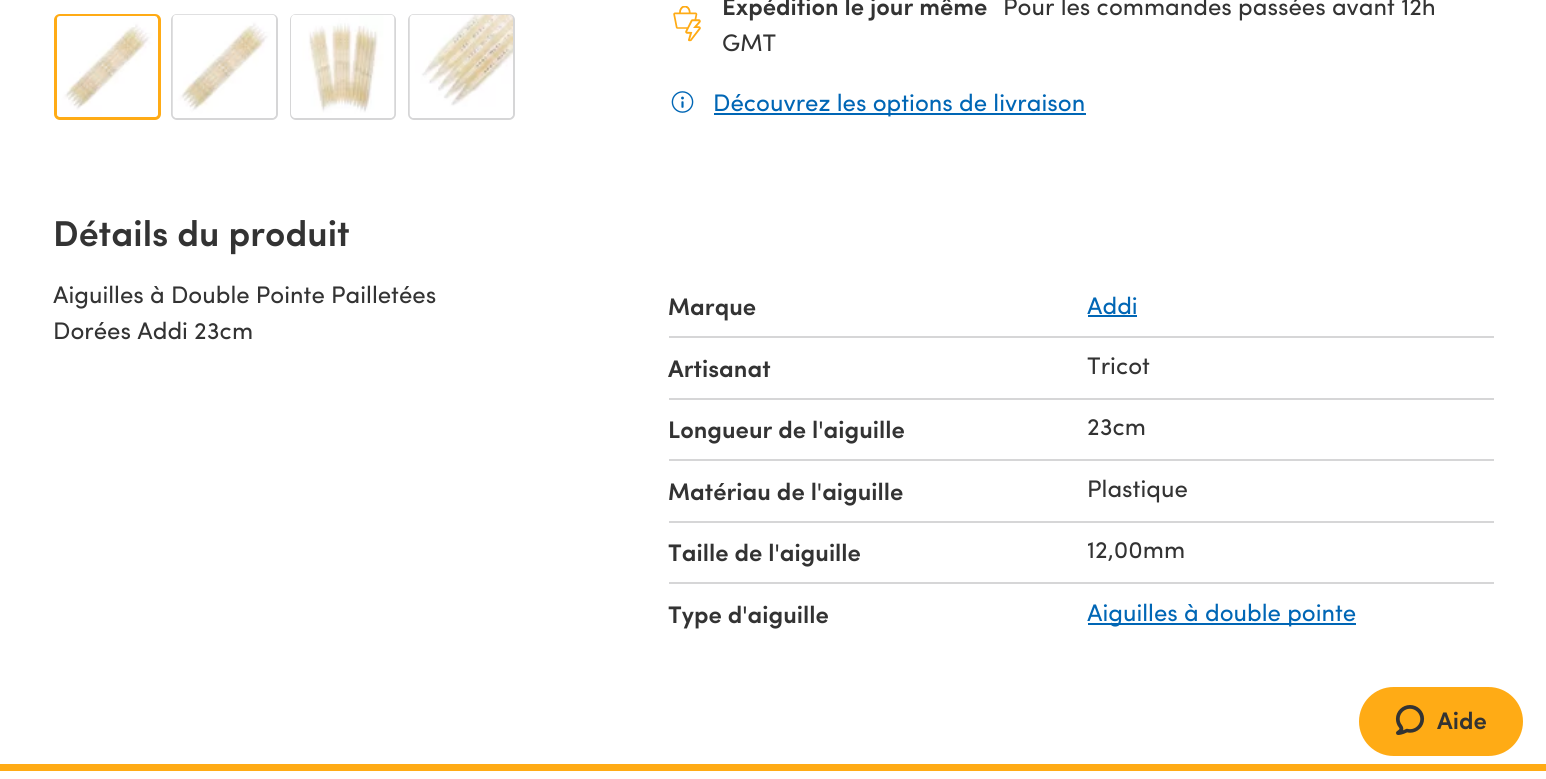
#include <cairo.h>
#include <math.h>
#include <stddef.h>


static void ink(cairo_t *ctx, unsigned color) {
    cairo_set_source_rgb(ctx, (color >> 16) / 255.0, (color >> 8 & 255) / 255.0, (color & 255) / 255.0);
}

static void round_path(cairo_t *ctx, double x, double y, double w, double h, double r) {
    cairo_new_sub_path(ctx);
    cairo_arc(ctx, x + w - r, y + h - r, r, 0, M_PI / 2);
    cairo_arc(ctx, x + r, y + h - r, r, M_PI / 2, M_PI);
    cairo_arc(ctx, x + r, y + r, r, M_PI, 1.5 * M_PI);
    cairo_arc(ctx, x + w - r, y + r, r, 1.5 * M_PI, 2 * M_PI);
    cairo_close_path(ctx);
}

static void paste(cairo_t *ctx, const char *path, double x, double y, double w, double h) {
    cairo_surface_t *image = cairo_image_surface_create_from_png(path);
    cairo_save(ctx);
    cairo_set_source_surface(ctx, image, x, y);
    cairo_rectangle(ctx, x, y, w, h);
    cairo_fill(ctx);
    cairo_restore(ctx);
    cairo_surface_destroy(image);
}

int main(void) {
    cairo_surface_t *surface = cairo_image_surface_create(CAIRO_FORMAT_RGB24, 1546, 779);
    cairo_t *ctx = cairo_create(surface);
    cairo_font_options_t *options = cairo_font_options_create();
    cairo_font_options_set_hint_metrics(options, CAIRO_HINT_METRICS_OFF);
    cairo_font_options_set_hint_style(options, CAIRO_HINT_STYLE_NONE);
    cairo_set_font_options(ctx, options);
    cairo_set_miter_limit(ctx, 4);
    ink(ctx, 0xFFFFFF);
    cairo_paint(ctx);
    round_path(ctx, 55.5, 15.5, 104, 103, 4.5);
    ink(ctx, 0xFFAB15);
    cairo_set_line_width(ctx, 3);
    cairo_stroke(ctx);
    paste(ctx, "media/1.png", 57, 16, 101, 101);
    round_path(ctx, 172, 15, 105, 104, 5);
    ink(ctx, 0xD6D6D7);
    cairo_set_line_width(ctx, 2);
    cairo_stroke(ctx);
    paste(ctx, "media/2.png", 172, 14, 104, 104);
    round_path(ctx, 291, 15, 104, 104, 5);
    cairo_stroke(ctx);
    paste(ctx, "media/3.png", 291, 14, 104, 104);
    round_path(ctx, 409, 15, 105, 104, 5);
    cairo_stroke(ctx);
    paste(ctx, "media/4.png", 409, 14, 104, 104);
    paste(ctx, "media/5.png", 673, 6, 28, 36);
    cairo_select_font_face(ctx, "Sofia", CAIRO_FONT_SLANT_NORMAL, CAIRO_FONT_WEIGHT_NORMAL);
    cairo_set_font_size(ctx, 24);
    ink(ctx, 0x333333);
    cairo_move_to(ctx, 722, 15);
    cairo_show_text(ctx, "Expédition le jour même");
    cairo_select_font_face(ctx, "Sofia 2", CAIRO_FONT_SLANT_NORMAL, CAIRO_FONT_WEIGHT_NORMAL);
    cairo_move_to(ctx, 1003, 15);
    cairo_show_text(ctx, "Pour les commandes passées avant 12h");
    cairo_move_to(ctx, 722, 51);
    cairo_show_text(ctx, "GMT");
    paste(ctx, "media/6.png", 671, 91, 23, 22);
    ink(ctx, 0x0066B5);
    cairo_rectangle(ctx, 714, 113, 372, 2);
    cairo_fill(ctx);
    cairo_move_to(ctx, 713, 111);
    cairo_show_text(ctx, "Découvrez les options de livraison");
    cairo_select_font_face(ctx, "Sofia", CAIRO_FONT_SLANT_NORMAL, CAIRO_FONT_WEIGHT_NORMAL);
    cairo_set_font_size(ctx, 36);
    ink(ctx, 0x333333);
    cairo_move_to(ctx, 53, 246);
    cairo_show_text(ctx, "Détails du produit");
    cairo_select_font_face(ctx, "Sofia 2", CAIRO_FONT_SLANT_NORMAL, CAIRO_FONT_WEIGHT_NORMAL);
    cairo_set_font_size(ctx, 24);
    cairo_move_to(ctx, 53, 303);
    cairo_show_text(ctx, "Aiguilles à Double Pointe Pailletées");
    cairo_move_to(ctx, 53, 339);
    cairo_show_text(ctx, "Dorées Addi 23cm");
    ink(ctx, 0xD6D6D7);
    cairo_rectangle(ctx, 669, 336, 825, 2);
    cairo_fill(ctx);
    cairo_select_font_face(ctx, "Sofia", CAIRO_FONT_SLANT_NORMAL, CAIRO_FONT_WEIGHT_NORMAL);
    ink(ctx, 0x333333);
    cairo_move_to(ctx, 668, 315);
    cairo_show_text(ctx, "Marque");
    cairo_select_font_face(ctx, "Sofia 2", CAIRO_FONT_SLANT_NORMAL, CAIRO_FONT_WEIGHT_NORMAL);
    ink(ctx, 0x0066B5);
    cairo_move_to(ctx, 1087, 314);
    cairo_show_text(ctx, "Addi");
    cairo_rectangle(ctx, 1088, 315, 49, 2);
    cairo_fill(ctx);
    ink(ctx, 0xD6D6D7);
    cairo_rectangle(ctx, 669, 398, 825, 2);
    cairo_fill(ctx);
    cairo_select_font_face(ctx, "Sofia", CAIRO_FONT_SLANT_NORMAL, CAIRO_FONT_WEIGHT_NORMAL);
    ink(ctx, 0x333333);
    cairo_move_to(ctx, 668, 377);
    cairo_show_text(ctx, "Artisanat");
    cairo_select_font_face(ctx, "Sofia 2", CAIRO_FONT_SLANT_NORMAL, CAIRO_FONT_WEIGHT_NORMAL);
    cairo_move_to(ctx, 1087, 374);
    cairo_show_text(ctx, "Tricot");
    ink(ctx, 0xD6D6D7);
    cairo_rectangle(ctx, 669, 459, 825, 2);
    cairo_fill(ctx);
    cairo_select_font_face(ctx, "Sofia", CAIRO_FONT_SLANT_NORMAL, CAIRO_FONT_WEIGHT_NORMAL);
    ink(ctx, 0x333333);
    cairo_move_to(ctx, 668, 438);
    cairo_show_text(ctx, "Longueur de l'aiguille");
    cairo_select_font_face(ctx, "Sofia 2", CAIRO_FONT_SLANT_NORMAL, CAIRO_FONT_WEIGHT_NORMAL);
    cairo_move_to(ctx, 1087, 435);
    cairo_show_text(ctx, "23cm");
    ink(ctx, 0xD6D6D7);
    cairo_rectangle(ctx, 669, 521, 825, 2);
    cairo_fill(ctx);
    cairo_select_font_face(ctx, "Sofia", CAIRO_FONT_SLANT_NORMAL, CAIRO_FONT_WEIGHT_NORMAL);
    ink(ctx, 0x333333);
    cairo_move_to(ctx, 668, 500);
    cairo_show_text(ctx, "Matériau de l'aiguille");
    cairo_select_font_face(ctx, "Sofia 2", CAIRO_FONT_SLANT_NORMAL, CAIRO_FONT_WEIGHT_NORMAL);
    cairo_move_to(ctx, 1087, 497);
    cairo_show_text(ctx, "Plastique");
    ink(ctx, 0xD6D6D7);
    cairo_rectangle(ctx, 669, 582, 825, 2);
    cairo_fill(ctx);
    cairo_select_font_face(ctx, "Sofia", CAIRO_FONT_SLANT_NORMAL, CAIRO_FONT_WEIGHT_NORMAL);
    ink(ctx, 0x333333);
    cairo_move_to(ctx, 668, 561);
    cairo_show_text(ctx, "Taille de l'aiguille");
    cairo_select_font_face(ctx, "Sofia 2", CAIRO_FONT_SLANT_NORMAL, CAIRO_FONT_WEIGHT_NORMAL);
    cairo_move_to(ctx, 1087, 558);
    cairo_show_text(ctx, "12,00mm");
    cairo_select_font_face(ctx, "Sofia", CAIRO_FONT_SLANT_NORMAL, CAIRO_FONT_WEIGHT_NORMAL);
    cairo_move_to(ctx, 668, 623);
    cairo_show_text(ctx, "Type d'aiguille");
    ink(ctx, 0x0066B5);
    cairo_rectangle(ctx, 1088, 623, 268, 2);
    cairo_fill(ctx);
    cairo_select_font_face(ctx, "Sofia 2", CAIRO_FONT_SLANT_NORMAL, CAIRO_FONT_WEIGHT_NORMAL);
    cairo_move_to(ctx, 1087, 621);
    cairo_show_text(ctx, "Aiguilles à double pointe");
    ink(ctx, 0xFFAB15);
    round_path(ctx, 1359, 687, 164, 69, 34.5);
    cairo_fill(ctx);
    paste(ctx, "media/7.png", 1395, 705, 30, 30);
    cairo_select_font_face(ctx, "Sofia", CAIRO_FONT_SLANT_NORMAL, CAIRO_FONT_WEIGHT_NORMAL);
    ink(ctx, 0x333333);
    cairo_move_to(ctx, 1437, 729);
    cairo_show_text(ctx, "Aide");
    ink(ctx, 0xFFAB15);
    cairo_rectangle(ctx, 0, 764, 1546, 7);
    cairo_fill(ctx);
    cairo_surface_write_to_png(surface, "image.png");
    cairo_font_options_destroy(options);
    cairo_destroy(ctx);
    cairo_surface_destroy(surface);
    return 0;
}
